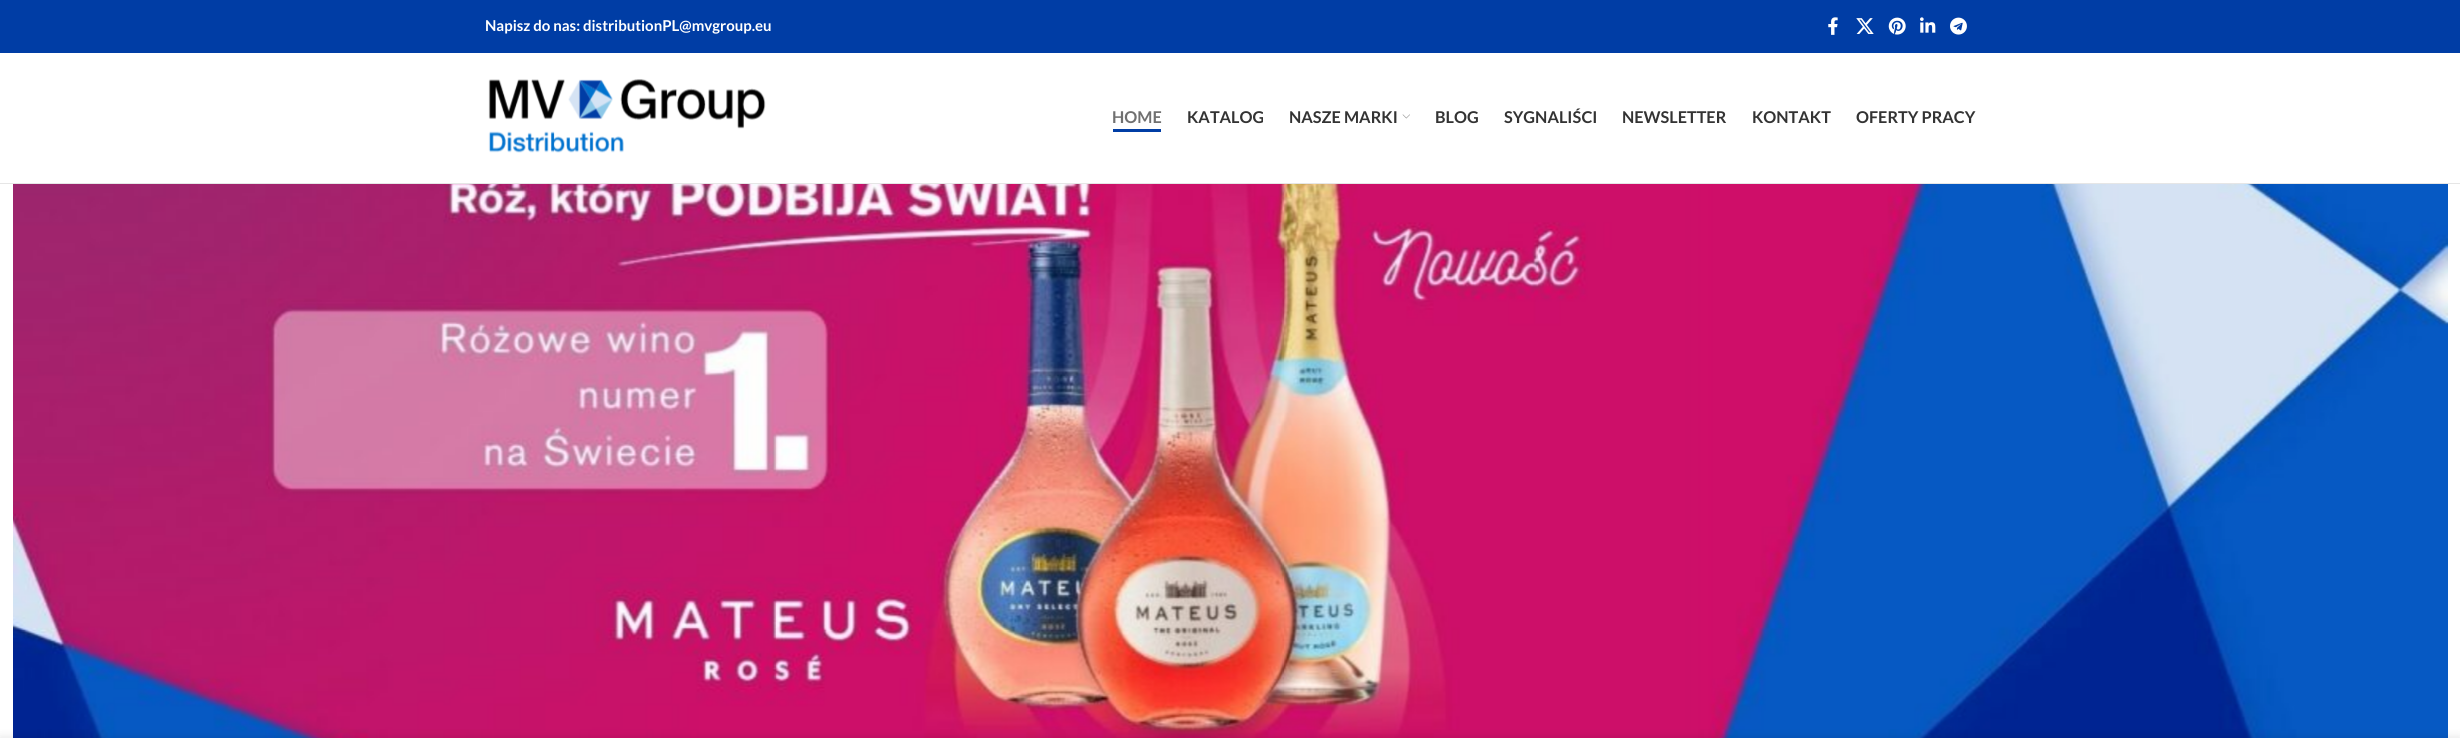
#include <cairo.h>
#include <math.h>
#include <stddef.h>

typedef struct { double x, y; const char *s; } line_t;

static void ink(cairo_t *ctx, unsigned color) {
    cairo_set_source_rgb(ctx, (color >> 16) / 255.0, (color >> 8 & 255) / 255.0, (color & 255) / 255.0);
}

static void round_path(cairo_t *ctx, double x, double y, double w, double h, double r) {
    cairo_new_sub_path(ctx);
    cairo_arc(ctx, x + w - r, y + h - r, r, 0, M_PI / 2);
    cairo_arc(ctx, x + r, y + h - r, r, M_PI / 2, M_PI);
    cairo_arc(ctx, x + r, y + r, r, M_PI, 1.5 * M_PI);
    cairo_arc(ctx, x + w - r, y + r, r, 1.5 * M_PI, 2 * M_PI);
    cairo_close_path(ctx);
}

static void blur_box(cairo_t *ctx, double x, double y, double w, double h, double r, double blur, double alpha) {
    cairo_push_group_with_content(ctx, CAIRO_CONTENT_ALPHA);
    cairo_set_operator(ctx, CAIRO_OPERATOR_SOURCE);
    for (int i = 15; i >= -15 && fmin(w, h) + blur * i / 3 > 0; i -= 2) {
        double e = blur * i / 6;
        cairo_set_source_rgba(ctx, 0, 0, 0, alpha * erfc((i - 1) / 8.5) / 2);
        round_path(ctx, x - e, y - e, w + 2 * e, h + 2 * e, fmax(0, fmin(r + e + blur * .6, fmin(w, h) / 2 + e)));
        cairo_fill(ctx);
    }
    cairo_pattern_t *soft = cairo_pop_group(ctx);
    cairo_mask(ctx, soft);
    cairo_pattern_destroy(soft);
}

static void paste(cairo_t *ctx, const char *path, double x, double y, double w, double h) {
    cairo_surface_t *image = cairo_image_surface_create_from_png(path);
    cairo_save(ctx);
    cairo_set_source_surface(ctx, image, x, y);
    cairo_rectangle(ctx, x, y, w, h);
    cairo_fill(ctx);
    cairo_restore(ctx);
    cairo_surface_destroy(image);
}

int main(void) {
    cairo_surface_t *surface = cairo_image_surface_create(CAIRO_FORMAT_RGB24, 2460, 738);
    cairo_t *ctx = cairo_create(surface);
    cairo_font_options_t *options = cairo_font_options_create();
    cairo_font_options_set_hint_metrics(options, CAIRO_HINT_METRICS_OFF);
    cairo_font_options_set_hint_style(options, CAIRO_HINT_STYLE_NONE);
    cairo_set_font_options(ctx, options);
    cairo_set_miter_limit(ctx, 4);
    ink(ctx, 0xFFFFFF);
    cairo_paint(ctx);
    ink(ctx, 0x003DA5);
    cairo_rectangle(ctx, 0, 0, 2460, 53);
    cairo_fill(ctx);
    cairo_select_font_face(ctx, "Lato", CAIRO_FONT_SLANT_NORMAL, CAIRO_FONT_WEIGHT_BOLD);
    cairo_set_font_size(ctx, 15);
    ink(ctx, 0xFFFFFF);
    cairo_move_to(ctx, 485, 31);
    cairo_show_text(ctx, "Napisz do nas: distributionPL@mvgroup.eu");
    paste(ctx, "media/1.png", 1828, 17, 10, 18);
    paste(ctx, "media/2.png", 1856, 18, 18, 16);
    paste(ctx, "media/3.png", 1888, 17, 18, 18);
    paste(ctx, "media/4.png", 1920, 17, 16, 16);
    paste(ctx, "media/5.png", 1950, 17, 17, 18);
    ink(ctx, 0xE6E6E6);
    cairo_rectangle(ctx, 0, 183, 2460, 1);
    cairo_fill(ctx);
    paste(ctx, "media/6.png", 488, 79, 278, 74);
    cairo_set_font_size(ctx, 16.25);
    ink(ctx, 0x707070);
    cairo_move_to(ctx, 1112, 123);
    cairo_show_text(ctx, "HOME");
    ink(ctx, 0x003DA5);
    cairo_rectangle(ctx, 1113, 129, 48, 3);
    cairo_fill(ctx);
    ink(ctx, 0x333333);
    cairo_move_to(ctx, 1187, 123);
    cairo_show_text(ctx, "KATALOG");
    cairo_move_to(ctx, 1289, 123);
    cairo_show_text(ctx, "NASZE MARKI");
    paste(ctx, "media/7.png", 1402, 114, 8, 5);
    {
        static const line_t items[] = {
            {1435, 123, "BLOG"},
            {1504, 123, "SYGNALIŚCI"},
            {1622, 123, "NEWSLETTER"},
            {1752, 123, "KONTAKT"},
            {1856, 123, "OFERTY PRACY"},
        };
        for (size_t i = 0; i < sizeof items / sizeof *items; i++) {
            cairo_move_to(ctx, items[i].x, items[i].y);
            cairo_show_text(ctx, items[i].s);
        }
    }
    paste(ctx, "media/8.png", 13, 184, 2435, 554);
    ink(ctx, 0x000000);
    blur_box(ctx, 0, 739, 2460, 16, 0, 5.5, 0.14);
    cairo_surface_write_to_png(surface, "image.png");
    cairo_font_options_destroy(options);
    cairo_destroy(ctx);
    cairo_surface_destroy(surface);
    return 0;
}
